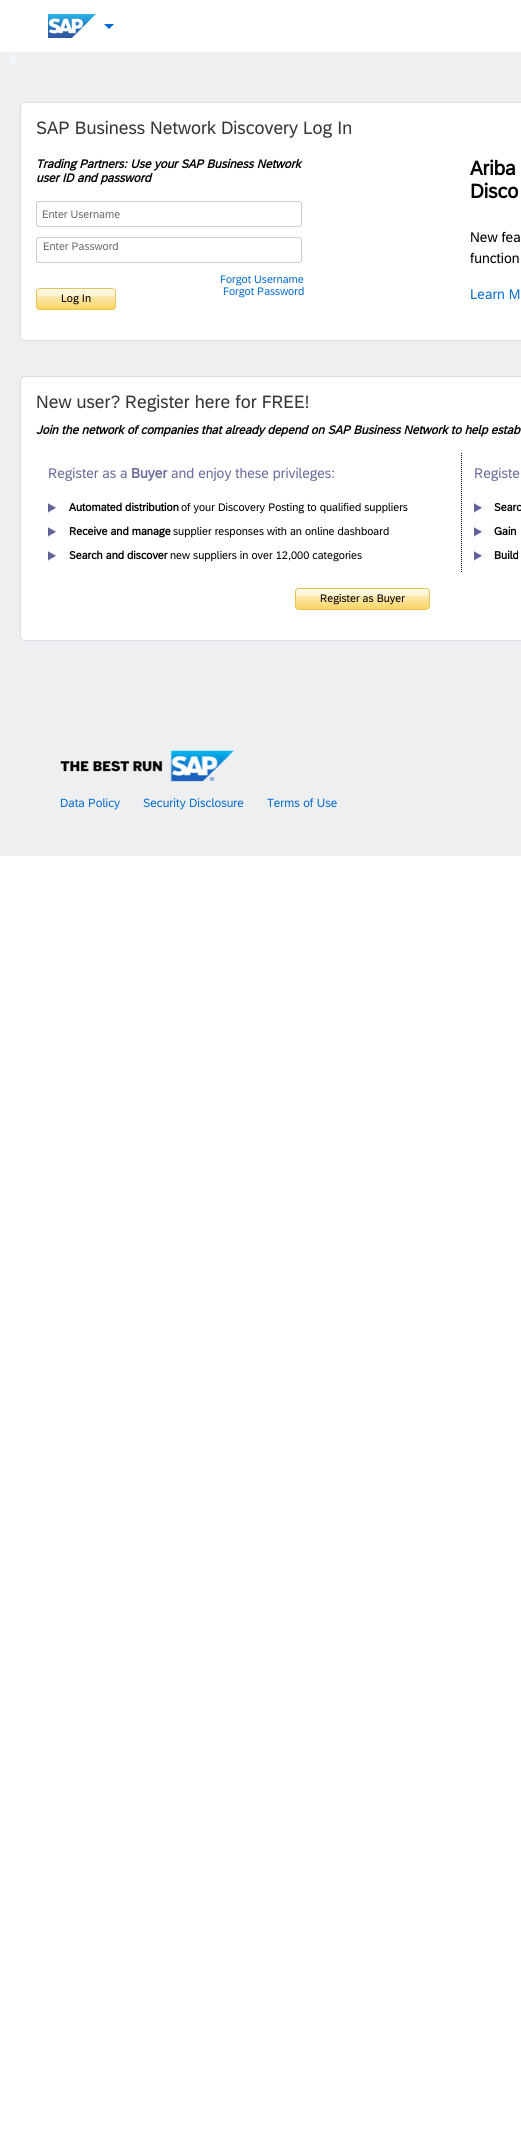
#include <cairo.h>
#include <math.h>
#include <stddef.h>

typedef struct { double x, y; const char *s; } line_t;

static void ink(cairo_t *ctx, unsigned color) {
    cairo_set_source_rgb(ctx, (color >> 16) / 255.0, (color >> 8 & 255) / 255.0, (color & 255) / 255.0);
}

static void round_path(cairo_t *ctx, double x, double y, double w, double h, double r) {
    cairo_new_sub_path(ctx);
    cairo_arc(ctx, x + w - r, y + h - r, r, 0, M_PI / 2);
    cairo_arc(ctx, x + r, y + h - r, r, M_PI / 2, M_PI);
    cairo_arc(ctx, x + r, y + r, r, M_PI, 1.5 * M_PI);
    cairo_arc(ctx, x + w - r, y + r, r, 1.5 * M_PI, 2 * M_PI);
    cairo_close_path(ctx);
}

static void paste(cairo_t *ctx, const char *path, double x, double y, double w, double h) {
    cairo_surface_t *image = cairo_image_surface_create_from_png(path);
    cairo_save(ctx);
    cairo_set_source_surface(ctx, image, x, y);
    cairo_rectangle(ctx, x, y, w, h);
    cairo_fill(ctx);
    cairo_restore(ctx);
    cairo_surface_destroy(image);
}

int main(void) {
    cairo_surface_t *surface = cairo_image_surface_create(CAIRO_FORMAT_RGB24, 521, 2146);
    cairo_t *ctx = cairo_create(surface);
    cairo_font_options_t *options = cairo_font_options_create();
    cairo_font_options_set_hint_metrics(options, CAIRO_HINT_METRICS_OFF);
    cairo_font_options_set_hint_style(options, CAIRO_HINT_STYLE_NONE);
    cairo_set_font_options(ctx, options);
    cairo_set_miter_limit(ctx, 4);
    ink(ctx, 0xFFFFFF);
    cairo_paint(ctx);
    paste(ctx, "media/1.png", 48, 14, 48, 24);
    ink(ctx, 0x0064D9);
    cairo_new_path(ctx);
    cairo_move_to(ctx, 104, 24);
    cairo_line_to(ctx, 114, 24);
    cairo_line_to(ctx, 109, 29);
    cairo_close_path(ctx);
    cairo_fill(ctx);
    ink(ctx, 0xEDEFF0);
    cairo_rectangle(ctx, 0, 52, 521, 804);
    cairo_fill(ctx);
    paste(ctx, "media/2.png", 10, 52, 6, 12);
    ink(ctx, 0xFFFFFF);
    round_path(ctx, 20.5, 102.5, 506, 238, 4.5);
    cairo_fill_preserve(ctx);
    ink(ctx, 0xD8DEE3);
    cairo_set_line_width(ctx, 1);
    cairo_stroke(ctx);
    cairo_select_font_face(ctx, "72", CAIRO_FONT_SLANT_NORMAL, CAIRO_FONT_WEIGHT_NORMAL);
    cairo_set_font_size(ctx, 18);
    ink(ctx, 0x363636);
    cairo_move_to(ctx, 36, 134);
    cairo_show_text(ctx, "SAP Business Network Discovery Log In");
    cairo_select_font_face(ctx, "72", CAIRO_FONT_SLANT_ITALIC, CAIRO_FONT_WEIGHT_BOLD);
    cairo_set_font_size(ctx, 12);
    ink(ctx, 0x000000);
    cairo_move_to(ctx, 36, 168);
    cairo_show_text(ctx, "Trading Partners: Use your SAP Business Network");
    cairo_move_to(ctx, 36, 182);
    cairo_show_text(ctx, "user ID and password");
    round_path(ctx, 36.5, 201.5, 265, 25, 2.5);
    ink(ctx, 0xC5D0D5);
    cairo_stroke(ctx);
    cairo_select_font_face(ctx, "72", CAIRO_FONT_SLANT_NORMAL, CAIRO_FONT_WEIGHT_NORMAL);
    cairo_set_font_size(ctx, 11);
    ink(ctx, 0x6A6D70);
    cairo_move_to(ctx, 42, 218);
    cairo_show_text(ctx, "Enter Username");
    round_path(ctx, 36.5, 237.5, 265, 25, 2.5);
    ink(ctx, 0xC5D0D5);
    cairo_stroke(ctx);
    ink(ctx, 0x6A6D70);
    cairo_move_to(ctx, 43, 250);
    cairo_show_text(ctx, "Enter Password");
    ink(ctx, 0x0A6ED1);
    cairo_move_to(ctx, 220, 283);
    cairo_show_text(ctx, "Forgot Username");
    cairo_move_to(ctx, 223, 295);
    cairo_show_text(ctx, "Forgot Password");
    paste(ctx, "media/3.png", 36, 288, 15, 22);
    paste(ctx, "media/4.png", 51, 288, 50, 22);
    ink(ctx, 0x000000);
    cairo_move_to(ctx, 61, 302);
    cairo_show_text(ctx, "Log In");
    paste(ctx, "media/5.png", 101, 288, 15, 22);
    cairo_select_font_face(ctx, "72", CAIRO_FONT_SLANT_NORMAL, CAIRO_FONT_WEIGHT_BOLD);
    cairo_set_font_size(ctx, 20);
    cairo_move_to(ctx, 470, 175);
    cairo_show_text(ctx, "Ariba");
    cairo_move_to(ctx, 470, 198);
    cairo_show_text(ctx, "Disco");
    cairo_select_font_face(ctx, "72", CAIRO_FONT_SLANT_NORMAL, CAIRO_FONT_WEIGHT_NORMAL);
    cairo_set_font_size(ctx, 14);
    cairo_move_to(ctx, 470, 242);
    cairo_show_text(ctx, "New fea");
    cairo_move_to(ctx, 470, 263);
    cairo_show_text(ctx, "function");
    ink(ctx, 0x0A6ED1);
    cairo_move_to(ctx, 470, 299);
    cairo_show_text(ctx, "Learn M");
    ink(ctx, 0xFFFFFF);
    round_path(ctx, 20.5, 376.5, 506, 264, 4.5);
    cairo_fill_preserve(ctx);
    ink(ctx, 0xD8DEE3);
    cairo_stroke(ctx);
    cairo_set_font_size(ctx, 18);
    ink(ctx, 0x363636);
    cairo_move_to(ctx, 36, 408);
    cairo_show_text(ctx, "New user? Register here for FREE!");
    cairo_select_font_face(ctx, "72", CAIRO_FONT_SLANT_ITALIC, CAIRO_FONT_WEIGHT_BOLD);
    cairo_set_font_size(ctx, 12);
    ink(ctx, 0x000000);
    cairo_move_to(ctx, 36, 434);
    cairo_show_text(ctx, "Join the network of companies that already depend on SAP Business Network to help estab");
    cairo_select_font_face(ctx, "72", CAIRO_FONT_SLANT_NORMAL, CAIRO_FONT_WEIGHT_NORMAL);
    cairo_set_font_size(ctx, 14);
    ink(ctx, 0x6B6D9E);
    cairo_move_to(ctx, 48, 478);
    cairo_show_text(ctx, "Register as a");
    cairo_select_font_face(ctx, "72", CAIRO_FONT_SLANT_NORMAL, CAIRO_FONT_WEIGHT_BOLD);
    cairo_move_to(ctx, 131, 478);
    cairo_show_text(ctx, "Buyer");
    cairo_select_font_face(ctx, "72", CAIRO_FONT_SLANT_NORMAL, CAIRO_FONT_WEIGHT_NORMAL);
    cairo_move_to(ctx, 171, 478);
    cairo_show_text(ctx, "and enjoy these privileges:");
    paste(ctx, "media/6.png", 48, 503, 8, 10);
    cairo_select_font_face(ctx, "72", CAIRO_FONT_SLANT_NORMAL, CAIRO_FONT_WEIGHT_BOLD);
    cairo_set_font_size(ctx, 11);
    ink(ctx, 0x000000);
    cairo_move_to(ctx, 69, 511);
    cairo_show_text(ctx, "Automated distribution");
    cairo_select_font_face(ctx, "72", CAIRO_FONT_SLANT_NORMAL, CAIRO_FONT_WEIGHT_NORMAL);
    cairo_move_to(ctx, 181, 511);
    cairo_show_text(ctx, "of your Discovery Posting to qualified suppliers");
    paste(ctx, "media/6.png", 48, 527, 8, 10);
    cairo_select_font_face(ctx, "72", CAIRO_FONT_SLANT_NORMAL, CAIRO_FONT_WEIGHT_BOLD);
    cairo_move_to(ctx, 69, 535);
    cairo_show_text(ctx, "Receive and manage");
    cairo_select_font_face(ctx, "72", CAIRO_FONT_SLANT_NORMAL, CAIRO_FONT_WEIGHT_NORMAL);
    cairo_move_to(ctx, 173, 535);
    cairo_show_text(ctx, "supplier responses with an online dashboard");
    paste(ctx, "media/6.png", 48, 551, 8, 10);
    cairo_select_font_face(ctx, "72", CAIRO_FONT_SLANT_NORMAL, CAIRO_FONT_WEIGHT_BOLD);
    cairo_move_to(ctx, 69, 559);
    cairo_show_text(ctx, "Search and discover");
    cairo_select_font_face(ctx, "72", CAIRO_FONT_SLANT_NORMAL, CAIRO_FONT_WEIGHT_NORMAL);
    cairo_move_to(ctx, 170, 559);
    cairo_show_text(ctx, "new suppliers in over 12,000 categories");
    cairo_new_path(ctx);
    cairo_move_to(ctx, 461.5, 453);
    cairo_line_to(ctx, 461.5, 573);
    cairo_set_dash(ctx, (double[]){1, 1}, 2, 0);
    cairo_stroke(ctx);
    cairo_set_font_size(ctx, 14);
    ink(ctx, 0x6B6D9E);
    cairo_move_to(ctx, 474, 478);
    cairo_show_text(ctx, "Registe");
    paste(ctx, "media/6.png", 474, 503, 8, 10);
    cairo_select_font_face(ctx, "72", CAIRO_FONT_SLANT_NORMAL, CAIRO_FONT_WEIGHT_BOLD);
    cairo_set_font_size(ctx, 11);
    ink(ctx, 0x000000);
    cairo_move_to(ctx, 494, 511);
    cairo_show_text(ctx, "Searc");
    paste(ctx, "media/6.png", 474, 527, 8, 10);
    cairo_move_to(ctx, 494, 535);
    cairo_show_text(ctx, "Gain");
    paste(ctx, "media/6.png", 474, 551, 8, 10);
    cairo_move_to(ctx, 494, 559);
    cairo_show_text(ctx, "Build");
    paste(ctx, "media/3.png", 295, 588, 15, 22);
    paste(ctx, "media/7.png", 310, 588, 105, 22);
    cairo_select_font_face(ctx, "72", CAIRO_FONT_SLANT_NORMAL, CAIRO_FONT_WEIGHT_NORMAL);
    cairo_move_to(ctx, 320, 602);
    cairo_show_text(ctx, "Register as Buyer");
    paste(ctx, "media/5.png", 415, 588, 15, 22);
    paste(ctx, "media/8.png", 60, 750, 174, 32);
    cairo_set_font_size(ctx, 12);
    ink(ctx, 0x0A6ED1);
    {
        static const line_t items[] = {
            {60, 807, "Data Policy"},
            {143, 807, "Security Disclosure"},
            {267, 807, "Terms of Use"},
        };
        for (size_t i = 0; i < sizeof items / sizeof *items; i++) {
            cairo_move_to(ctx, items[i].x, items[i].y);
            cairo_show_text(ctx, items[i].s);
        }
    }
    cairo_surface_write_to_png(surface, "image.png");
    cairo_font_options_destroy(options);
    cairo_destroy(ctx);
    cairo_surface_destroy(surface);
    return 0;
}
